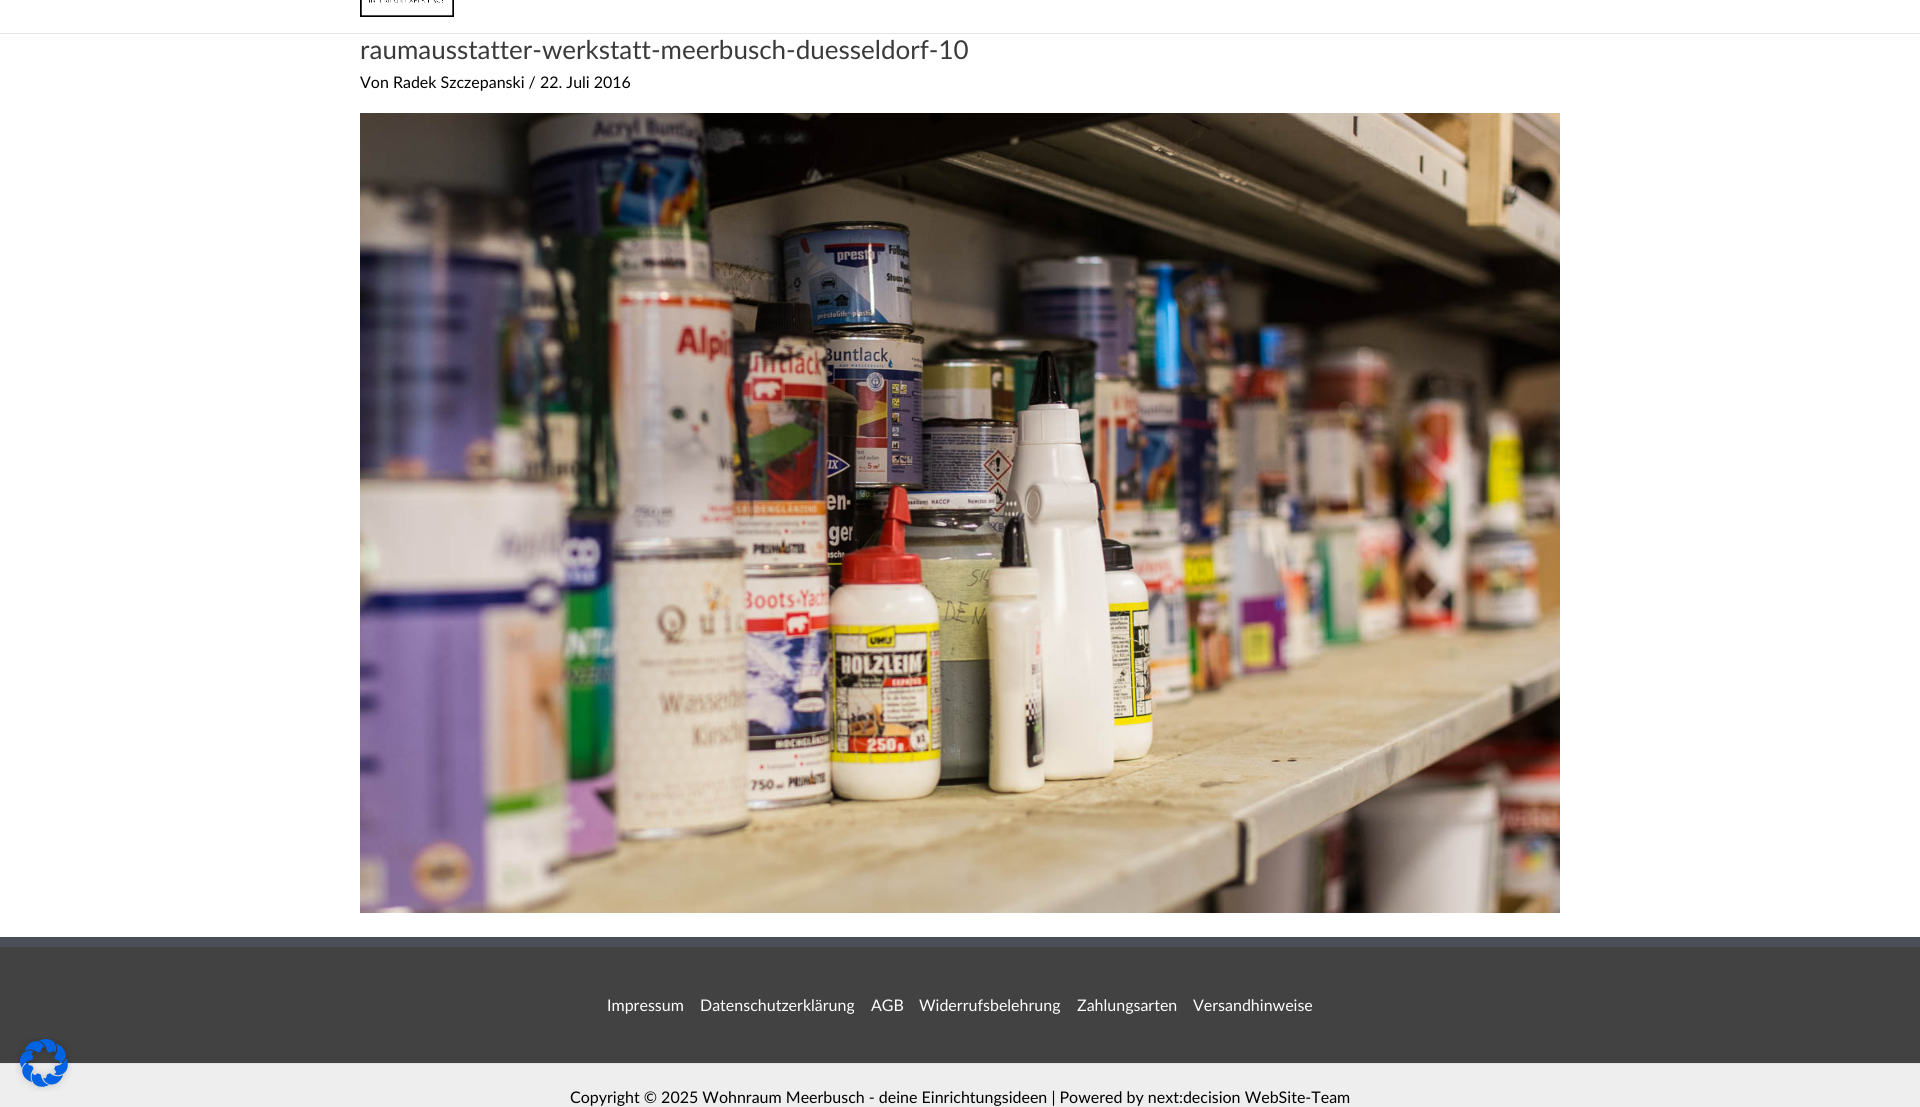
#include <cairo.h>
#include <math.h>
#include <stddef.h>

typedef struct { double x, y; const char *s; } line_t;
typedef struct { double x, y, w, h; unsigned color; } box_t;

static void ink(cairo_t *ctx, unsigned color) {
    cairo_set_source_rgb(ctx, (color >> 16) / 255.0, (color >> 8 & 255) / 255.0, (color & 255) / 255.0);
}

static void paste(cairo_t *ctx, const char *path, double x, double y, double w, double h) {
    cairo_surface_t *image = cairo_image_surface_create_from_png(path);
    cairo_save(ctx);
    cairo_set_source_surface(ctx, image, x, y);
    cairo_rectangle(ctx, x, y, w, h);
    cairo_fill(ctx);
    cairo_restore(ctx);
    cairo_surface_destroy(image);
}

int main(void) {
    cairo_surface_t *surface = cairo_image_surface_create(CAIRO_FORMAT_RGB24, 1920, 1107);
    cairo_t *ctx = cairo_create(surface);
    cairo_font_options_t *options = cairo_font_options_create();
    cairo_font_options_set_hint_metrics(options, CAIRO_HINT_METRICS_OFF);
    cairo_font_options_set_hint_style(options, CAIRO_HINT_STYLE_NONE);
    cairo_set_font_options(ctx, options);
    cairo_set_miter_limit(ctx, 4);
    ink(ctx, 0xFFFFFF);
    cairo_paint(ctx);
    {
        static const box_t items[] = {
            {0, 947, 1920, 116, 0x424242},
            {0, 1064, 1920, 43, 0xEEEEEE},
            {0, 1063, 1920, 1, 0xE5E5E5},
        };
        for (size_t i = 0; i < sizeof items / sizeof *items; i++) {
            ink(ctx, items[i].color);
            cairo_rectangle(ctx, items[i].x, items[i].y, items[i].w, items[i].h);
            cairo_fill(ctx);
        }
    }
    paste(ctx, "media/1.png", 15, 1038, 57, 53);
    cairo_rectangle(ctx, 0, 33, 1920, 1);
    cairo_fill(ctx);
    paste(ctx, "media/2.png", 360, 0, 94, 17);
    cairo_select_font_face(ctx, "Lato", CAIRO_FONT_SLANT_NORMAL, CAIRO_FONT_WEIGHT_NORMAL);
    cairo_set_font_size(ctx, 26);
    ink(ctx, 0x3A3A3A);
    cairo_move_to(ctx, 360, 59);
    cairo_show_text(ctx, "raumausstatter-werkstatt-meerbusch-duesseldorf-10");
    cairo_set_font_size(ctx, 16);
    ink(ctx, 0x000000);
    cairo_move_to(ctx, 360, 88);
    cairo_show_text(ctx, "Von Radek Szczepanski / 22. Juli 2016");
    paste(ctx, "media/3.png", 360, 113, 1200, 800);
    ink(ctx, 0x4B4F58);
    cairo_rectangle(ctx, 0, 937, 1920, 10);
    cairo_fill(ctx);
    ink(ctx, 0xFFFFFF);
    {
        static const line_t items[] = {
            {607, 1011, "Impressum"},
            {700, 1011, "Datenschutzerklärung"},
            {871, 1011, "AGB"},
            {919, 1011, "Widerrufsbelehrung"},
            {1077, 1011, "Zahlungsarten"},
            {1193, 1011, "Versandhinweise"},
        };
        for (size_t i = 0; i < sizeof items / sizeof *items; i++) {
            cairo_move_to(ctx, items[i].x, items[i].y);
            cairo_show_text(ctx, items[i].s);
        }
    }
    ink(ctx, 0x000000);
    cairo_move_to(ctx, 570, 1103);
    cairo_show_text(ctx, "Copyright © 2025 Wohnraum Meerbusch - deine Einrichtungsideen | Powered by next:decision WebSite-Team");
    cairo_surface_write_to_png(surface, "image.png");
    cairo_font_options_destroy(options);
    cairo_destroy(ctx);
    cairo_surface_destroy(surface);
    return 0;
}
